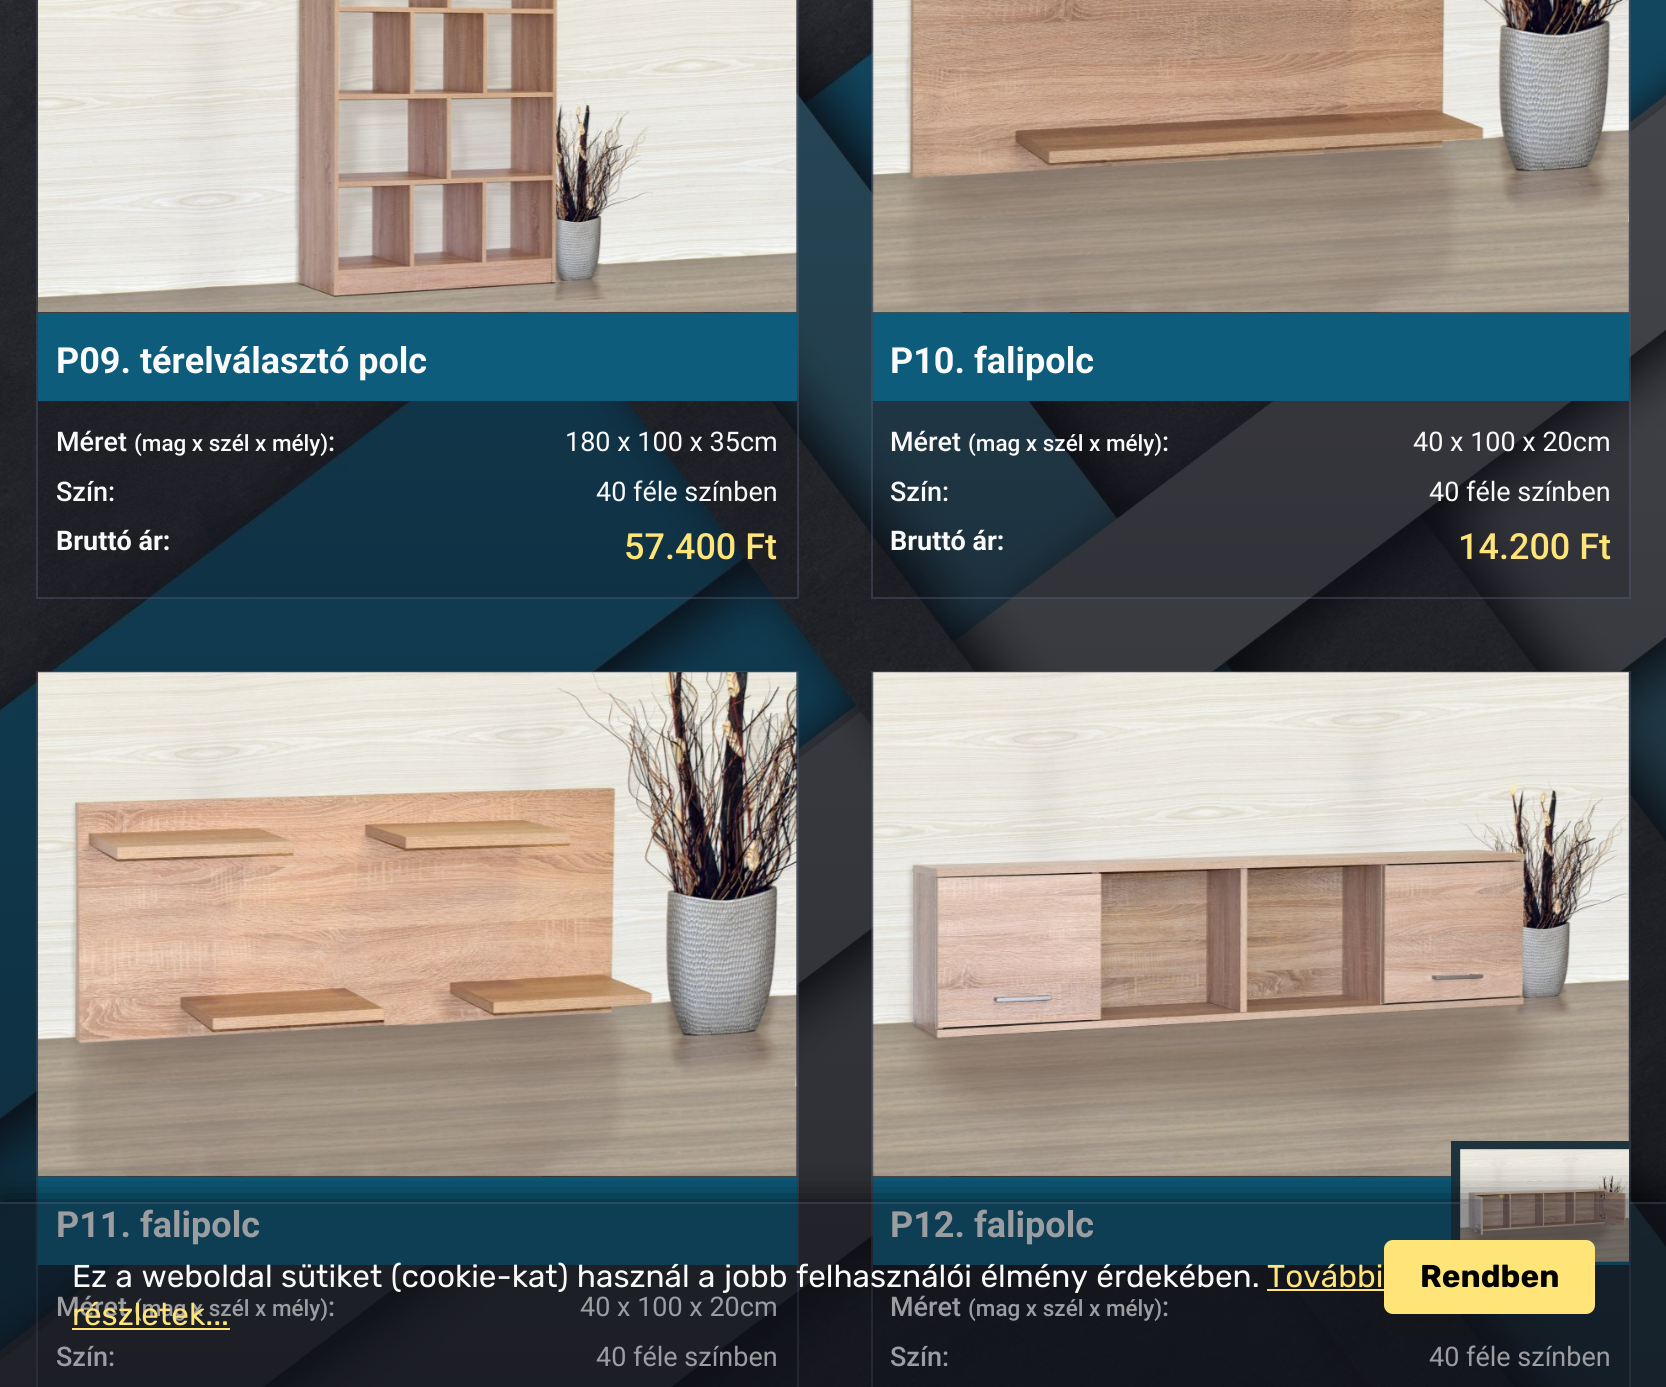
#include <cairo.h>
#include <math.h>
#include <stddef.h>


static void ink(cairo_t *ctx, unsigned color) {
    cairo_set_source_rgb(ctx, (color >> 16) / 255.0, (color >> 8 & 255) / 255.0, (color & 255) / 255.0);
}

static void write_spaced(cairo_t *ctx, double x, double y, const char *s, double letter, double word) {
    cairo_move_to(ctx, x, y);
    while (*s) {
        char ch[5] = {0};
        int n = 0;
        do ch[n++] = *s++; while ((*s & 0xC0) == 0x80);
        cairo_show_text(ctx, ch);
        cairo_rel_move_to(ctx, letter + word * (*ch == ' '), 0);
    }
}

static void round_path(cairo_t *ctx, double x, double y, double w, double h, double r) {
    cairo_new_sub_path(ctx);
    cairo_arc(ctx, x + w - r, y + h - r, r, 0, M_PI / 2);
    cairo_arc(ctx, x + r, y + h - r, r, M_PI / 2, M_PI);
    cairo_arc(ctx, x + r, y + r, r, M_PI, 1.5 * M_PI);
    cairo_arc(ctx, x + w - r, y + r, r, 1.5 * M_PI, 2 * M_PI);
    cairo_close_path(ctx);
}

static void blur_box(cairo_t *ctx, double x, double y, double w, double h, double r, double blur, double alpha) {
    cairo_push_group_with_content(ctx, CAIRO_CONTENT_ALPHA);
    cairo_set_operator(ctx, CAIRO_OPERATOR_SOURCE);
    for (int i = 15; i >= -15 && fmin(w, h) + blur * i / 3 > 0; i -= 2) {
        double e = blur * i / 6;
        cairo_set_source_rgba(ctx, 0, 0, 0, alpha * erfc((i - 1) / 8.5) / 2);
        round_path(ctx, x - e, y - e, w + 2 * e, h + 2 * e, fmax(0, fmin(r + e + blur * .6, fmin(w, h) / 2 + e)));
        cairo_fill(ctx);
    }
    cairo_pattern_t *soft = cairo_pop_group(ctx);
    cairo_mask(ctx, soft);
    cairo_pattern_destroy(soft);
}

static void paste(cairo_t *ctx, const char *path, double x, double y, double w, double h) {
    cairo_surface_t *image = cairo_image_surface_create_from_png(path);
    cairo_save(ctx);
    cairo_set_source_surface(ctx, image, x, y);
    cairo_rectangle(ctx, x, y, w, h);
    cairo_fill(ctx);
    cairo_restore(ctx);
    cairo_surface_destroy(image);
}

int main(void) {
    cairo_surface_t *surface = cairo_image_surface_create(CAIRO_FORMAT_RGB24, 1666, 1387);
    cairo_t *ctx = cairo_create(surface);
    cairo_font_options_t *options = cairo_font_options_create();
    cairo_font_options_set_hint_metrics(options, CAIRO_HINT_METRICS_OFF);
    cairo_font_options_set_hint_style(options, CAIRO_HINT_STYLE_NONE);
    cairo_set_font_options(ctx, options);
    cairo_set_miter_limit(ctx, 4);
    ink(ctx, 0xFFFFFF);
    cairo_paint(ctx);
    paste(ctx, "media/1.png", 0, 0, 1666, 1387);
    cairo_set_source_rgba(ctx, 0.063, 0.071, 0.106, 0.2);
    cairo_rectangle(ctx, 36, 0, 763, 599);
    cairo_fill(ctx);
    cairo_rectangle(ctx, 37, -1, 761, 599);
    cairo_set_source_rgba(ctx, 0.431, 0.471, 0.588, 0.3);
    cairo_stroke(ctx);
    paste(ctx, "media/2.png", 38, 0, 760, 313);
    ink(ctx, 0x0D5C7B);
    cairo_rectangle(ctx, 38, 313, 759, 88);
    cairo_fill(ctx);
    cairo_select_font_face(ctx, "Roboto", CAIRO_FONT_SLANT_NORMAL, CAIRO_FONT_WEIGHT_BOLD);
    cairo_set_font_size(ctx, 36);
    ink(ctx, 0xFAFAFA);
    cairo_move_to(ctx, 56, 373);
    cairo_show_text(ctx, "P09. térelválasztó polc");
    cairo_select_font_face(ctx, "Roboto Medium", CAIRO_FONT_SLANT_NORMAL, CAIRO_FONT_WEIGHT_NORMAL);
    cairo_set_font_size(ctx, 27);
    cairo_move_to(ctx, 56, 451);
    cairo_show_text(ctx, "Méret");
    cairo_set_font_size(ctx, 22.5);
    cairo_move_to(ctx, 134, 451);
    cairo_show_text(ctx, "(mag x szél x mély)");
    cairo_set_font_size(ctx, 27);
    cairo_move_to(ctx, 328, 451);
    cairo_show_text(ctx, ":");
    cairo_select_font_face(ctx, "Roboto", CAIRO_FONT_SLANT_NORMAL, CAIRO_FONT_WEIGHT_NORMAL);
    cairo_move_to(ctx, 565, 451);
    cairo_show_text(ctx, "180 x 100 x 35cm");
    cairo_select_font_face(ctx, "Roboto Medium", CAIRO_FONT_SLANT_NORMAL, CAIRO_FONT_WEIGHT_NORMAL);
    cairo_move_to(ctx, 56, 501);
    cairo_show_text(ctx, "Szín:");
    cairo_select_font_face(ctx, "Roboto", CAIRO_FONT_SLANT_NORMAL, CAIRO_FONT_WEIGHT_NORMAL);
    cairo_move_to(ctx, 596, 501);
    cairo_show_text(ctx, "40 féle színben");
    cairo_select_font_face(ctx, "Roboto", CAIRO_FONT_SLANT_NORMAL, CAIRO_FONT_WEIGHT_BOLD);
    cairo_move_to(ctx, 56, 550);
    cairo_show_text(ctx, "Bruttó ár:");
    cairo_select_font_face(ctx, "Roboto Medium", CAIRO_FONT_SLANT_NORMAL, CAIRO_FONT_WEIGHT_NORMAL);
    cairo_set_font_size(ctx, 36);
    ink(ctx, 0xFFE477);
    cairo_move_to(ctx, 624, 559);
    cairo_show_text(ctx, "57.400 Ft");
    cairo_set_source_rgba(ctx, 0.063, 0.071, 0.106, 0.2);
    cairo_rectangle(ctx, 871, 0, 760, 599);
    cairo_fill(ctx);
    cairo_rectangle(ctx, 872, -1, 758, 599);
    cairo_set_source_rgba(ctx, 0.431, 0.471, 0.588, 0.3);
    cairo_stroke(ctx);
    paste(ctx, "media/3.png", 872, 0, 757, 313);
    ink(ctx, 0x0D5C7B);
    cairo_rectangle(ctx, 873, 313, 756, 88);
    cairo_fill(ctx);
    cairo_select_font_face(ctx, "Roboto", CAIRO_FONT_SLANT_NORMAL, CAIRO_FONT_WEIGHT_BOLD);
    ink(ctx, 0xFAFAFA);
    cairo_move_to(ctx, 890, 373);
    cairo_show_text(ctx, "P10. falipolc");
    cairo_select_font_face(ctx, "Roboto Medium", CAIRO_FONT_SLANT_NORMAL, CAIRO_FONT_WEIGHT_NORMAL);
    cairo_set_font_size(ctx, 27);
    cairo_move_to(ctx, 890, 451);
    cairo_show_text(ctx, "Méret");
    cairo_set_font_size(ctx, 22.5);
    cairo_move_to(ctx, 968, 451);
    cairo_show_text(ctx, "(mag x szél x mély)");
    cairo_set_font_size(ctx, 27);
    cairo_move_to(ctx, 1162, 451);
    cairo_show_text(ctx, ":");
    cairo_select_font_face(ctx, "Roboto", CAIRO_FONT_SLANT_NORMAL, CAIRO_FONT_WEIGHT_NORMAL);
    cairo_move_to(ctx, 1413, 451);
    cairo_show_text(ctx, "40 x 100 x 20cm");
    cairo_select_font_face(ctx, "Roboto Medium", CAIRO_FONT_SLANT_NORMAL, CAIRO_FONT_WEIGHT_NORMAL);
    cairo_move_to(ctx, 890, 501);
    cairo_show_text(ctx, "Szín:");
    cairo_select_font_face(ctx, "Roboto", CAIRO_FONT_SLANT_NORMAL, CAIRO_FONT_WEIGHT_NORMAL);
    cairo_move_to(ctx, 1429, 501);
    cairo_show_text(ctx, "40 féle színben");
    cairo_select_font_face(ctx, "Roboto", CAIRO_FONT_SLANT_NORMAL, CAIRO_FONT_WEIGHT_BOLD);
    cairo_move_to(ctx, 890, 550);
    cairo_show_text(ctx, "Bruttó ár:");
    cairo_select_font_face(ctx, "Roboto Medium", CAIRO_FONT_SLANT_NORMAL, CAIRO_FONT_WEIGHT_NORMAL);
    cairo_set_font_size(ctx, 36);
    ink(ctx, 0xFFE477);
    cairo_move_to(ctx, 1458, 559);
    cairo_show_text(ctx, "14.200 Ft");
    cairo_set_source_rgba(ctx, 0.063, 0.071, 0.106, 0.2);
    cairo_rectangle(ctx, 36, 671, 763, 716);
    cairo_fill(ctx);
    cairo_rectangle(ctx, 37, 672, 761, 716);
    cairo_set_source_rgba(ctx, 0.431, 0.471, 0.588, 0.3);
    cairo_stroke(ctx);
    paste(ctx, "media/4.png", 38, 672, 760, 505);
    ink(ctx, 0x0D5C7B);
    cairo_rectangle(ctx, 38, 1177, 759, 88);
    cairo_fill(ctx);
    cairo_select_font_face(ctx, "Roboto", CAIRO_FONT_SLANT_NORMAL, CAIRO_FONT_WEIGHT_BOLD);
    ink(ctx, 0xFAFAFA);
    cairo_move_to(ctx, 56, 1237);
    cairo_show_text(ctx, "P11. falipolc");
    cairo_select_font_face(ctx, "Roboto Medium", CAIRO_FONT_SLANT_NORMAL, CAIRO_FONT_WEIGHT_NORMAL);
    cairo_set_font_size(ctx, 27);
    cairo_move_to(ctx, 56, 1316);
    cairo_show_text(ctx, "Méret");
    cairo_set_font_size(ctx, 22.5);
    cairo_move_to(ctx, 134, 1316);
    cairo_show_text(ctx, "(mag x szél x mély)");
    cairo_set_font_size(ctx, 27);
    cairo_move_to(ctx, 328, 1316);
    cairo_show_text(ctx, ":");
    cairo_select_font_face(ctx, "Roboto", CAIRO_FONT_SLANT_NORMAL, CAIRO_FONT_WEIGHT_NORMAL);
    cairo_move_to(ctx, 580, 1316);
    cairo_show_text(ctx, "40 x 100 x 20cm");
    cairo_select_font_face(ctx, "Roboto Medium", CAIRO_FONT_SLANT_NORMAL, CAIRO_FONT_WEIGHT_NORMAL);
    cairo_move_to(ctx, 56, 1366);
    cairo_show_text(ctx, "Szín:");
    cairo_select_font_face(ctx, "Roboto", CAIRO_FONT_SLANT_NORMAL, CAIRO_FONT_WEIGHT_NORMAL);
    cairo_move_to(ctx, 596, 1366);
    cairo_show_text(ctx, "40 féle színben");
    cairo_set_source_rgba(ctx, 0.063, 0.071, 0.106, 0.2);
    cairo_rectangle(ctx, 871, 671, 760, 716);
    cairo_fill(ctx);
    cairo_rectangle(ctx, 872, 672, 758, 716);
    cairo_set_source_rgba(ctx, 0.431, 0.471, 0.588, 0.3);
    cairo_stroke(ctx);
    paste(ctx, "media/5.png", 872, 672, 757, 505);
    ink(ctx, 0x0D5C7B);
    cairo_rectangle(ctx, 873, 1177, 756, 88);
    cairo_fill(ctx);
    ink(ctx, 0x1D343F);
    cairo_rectangle(ctx, 1451, 1141, 178, 121);
    cairo_fill(ctx);
    paste(ctx, "media/6.png", 1460, 1149, 169, 113);
    cairo_select_font_face(ctx, "Roboto", CAIRO_FONT_SLANT_NORMAL, CAIRO_FONT_WEIGHT_BOLD);
    cairo_set_font_size(ctx, 36);
    ink(ctx, 0xFAFAFA);
    cairo_move_to(ctx, 890, 1237);
    cairo_show_text(ctx, "P12. falipolc");
    cairo_select_font_face(ctx, "Roboto Medium", CAIRO_FONT_SLANT_NORMAL, CAIRO_FONT_WEIGHT_NORMAL);
    cairo_set_font_size(ctx, 27);
    cairo_move_to(ctx, 890, 1316);
    cairo_show_text(ctx, "Méret");
    cairo_set_font_size(ctx, 22.5);
    cairo_move_to(ctx, 968, 1316);
    cairo_show_text(ctx, "(mag x szél x mély)");
    cairo_set_font_size(ctx, 27);
    cairo_move_to(ctx, 1162, 1316);
    cairo_show_text(ctx, ":");
    cairo_move_to(ctx, 890, 1366);
    cairo_show_text(ctx, "Szín:");
    cairo_select_font_face(ctx, "Roboto", CAIRO_FONT_SLANT_NORMAL, CAIRO_FONT_WEIGHT_NORMAL);
    cairo_move_to(ctx, 1429, 1366);
    cairo_show_text(ctx, "40 féle színben");
    cairo_save(ctx);
    cairo_rectangle(ctx, 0, 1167, 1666, 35);
    cairo_clip(ctx);
    ink(ctx, 0x000000);
    blur_box(ctx, 0, 1202, 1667, 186, 0, 18, 0.75);
    cairo_restore(ctx);
    cairo_set_source_rgba(ctx, 0.063, 0.071, 0.106, 0.4);
    cairo_rectangle(ctx, 0, 1202, 1666, 185);
    cairo_fill(ctx);
    cairo_set_source_rgba(ctx, 0.443, 0.467, 0.565, 0.25);
    cairo_rectangle(ctx, 0, 1202, 1666, 2);
    cairo_fill(ctx);
    cairo_select_font_face(ctx, "Rubik", CAIRO_FONT_SLANT_NORMAL, CAIRO_FONT_WEIGHT_NORMAL);
    cairo_set_font_size(ctx, 31.5);
    ink(ctx, 0xFAFAFA);
    write_spaced(ctx, 72, 1287, "Ez a weboldal sütiket (cookie-kat) használ a jobb felhasználói élmény érdekében.", 0, 0.75);
    ink(ctx, 0xFFE477);
    cairo_move_to(ctx, 1267, 1287);
    cairo_show_text(ctx, "További");
    cairo_rectangle(ctx, 1267, 1289, 117, 2);
    cairo_fill(ctx);
    cairo_move_to(ctx, 72, 1325);
    cairo_show_text(ctx, "részletek...");
    cairo_rectangle(ctx, 72, 1328, 158, 2);
    cairo_fill(ctx);
    round_path(ctx, 1384, 1240, 211, 74, 9);
    cairo_fill(ctx);
    cairo_select_font_face(ctx, "Rubik", CAIRO_FONT_SLANT_NORMAL, CAIRO_FONT_WEIGHT_BOLD);
    ink(ctx, 0x000000);
    cairo_move_to(ctx, 1420, 1287);
    cairo_show_text(ctx, "Rendben");
    cairo_surface_write_to_png(surface, "image.png");
    cairo_font_options_destroy(options);
    cairo_destroy(ctx);
    cairo_surface_destroy(surface);
    return 0;
}
